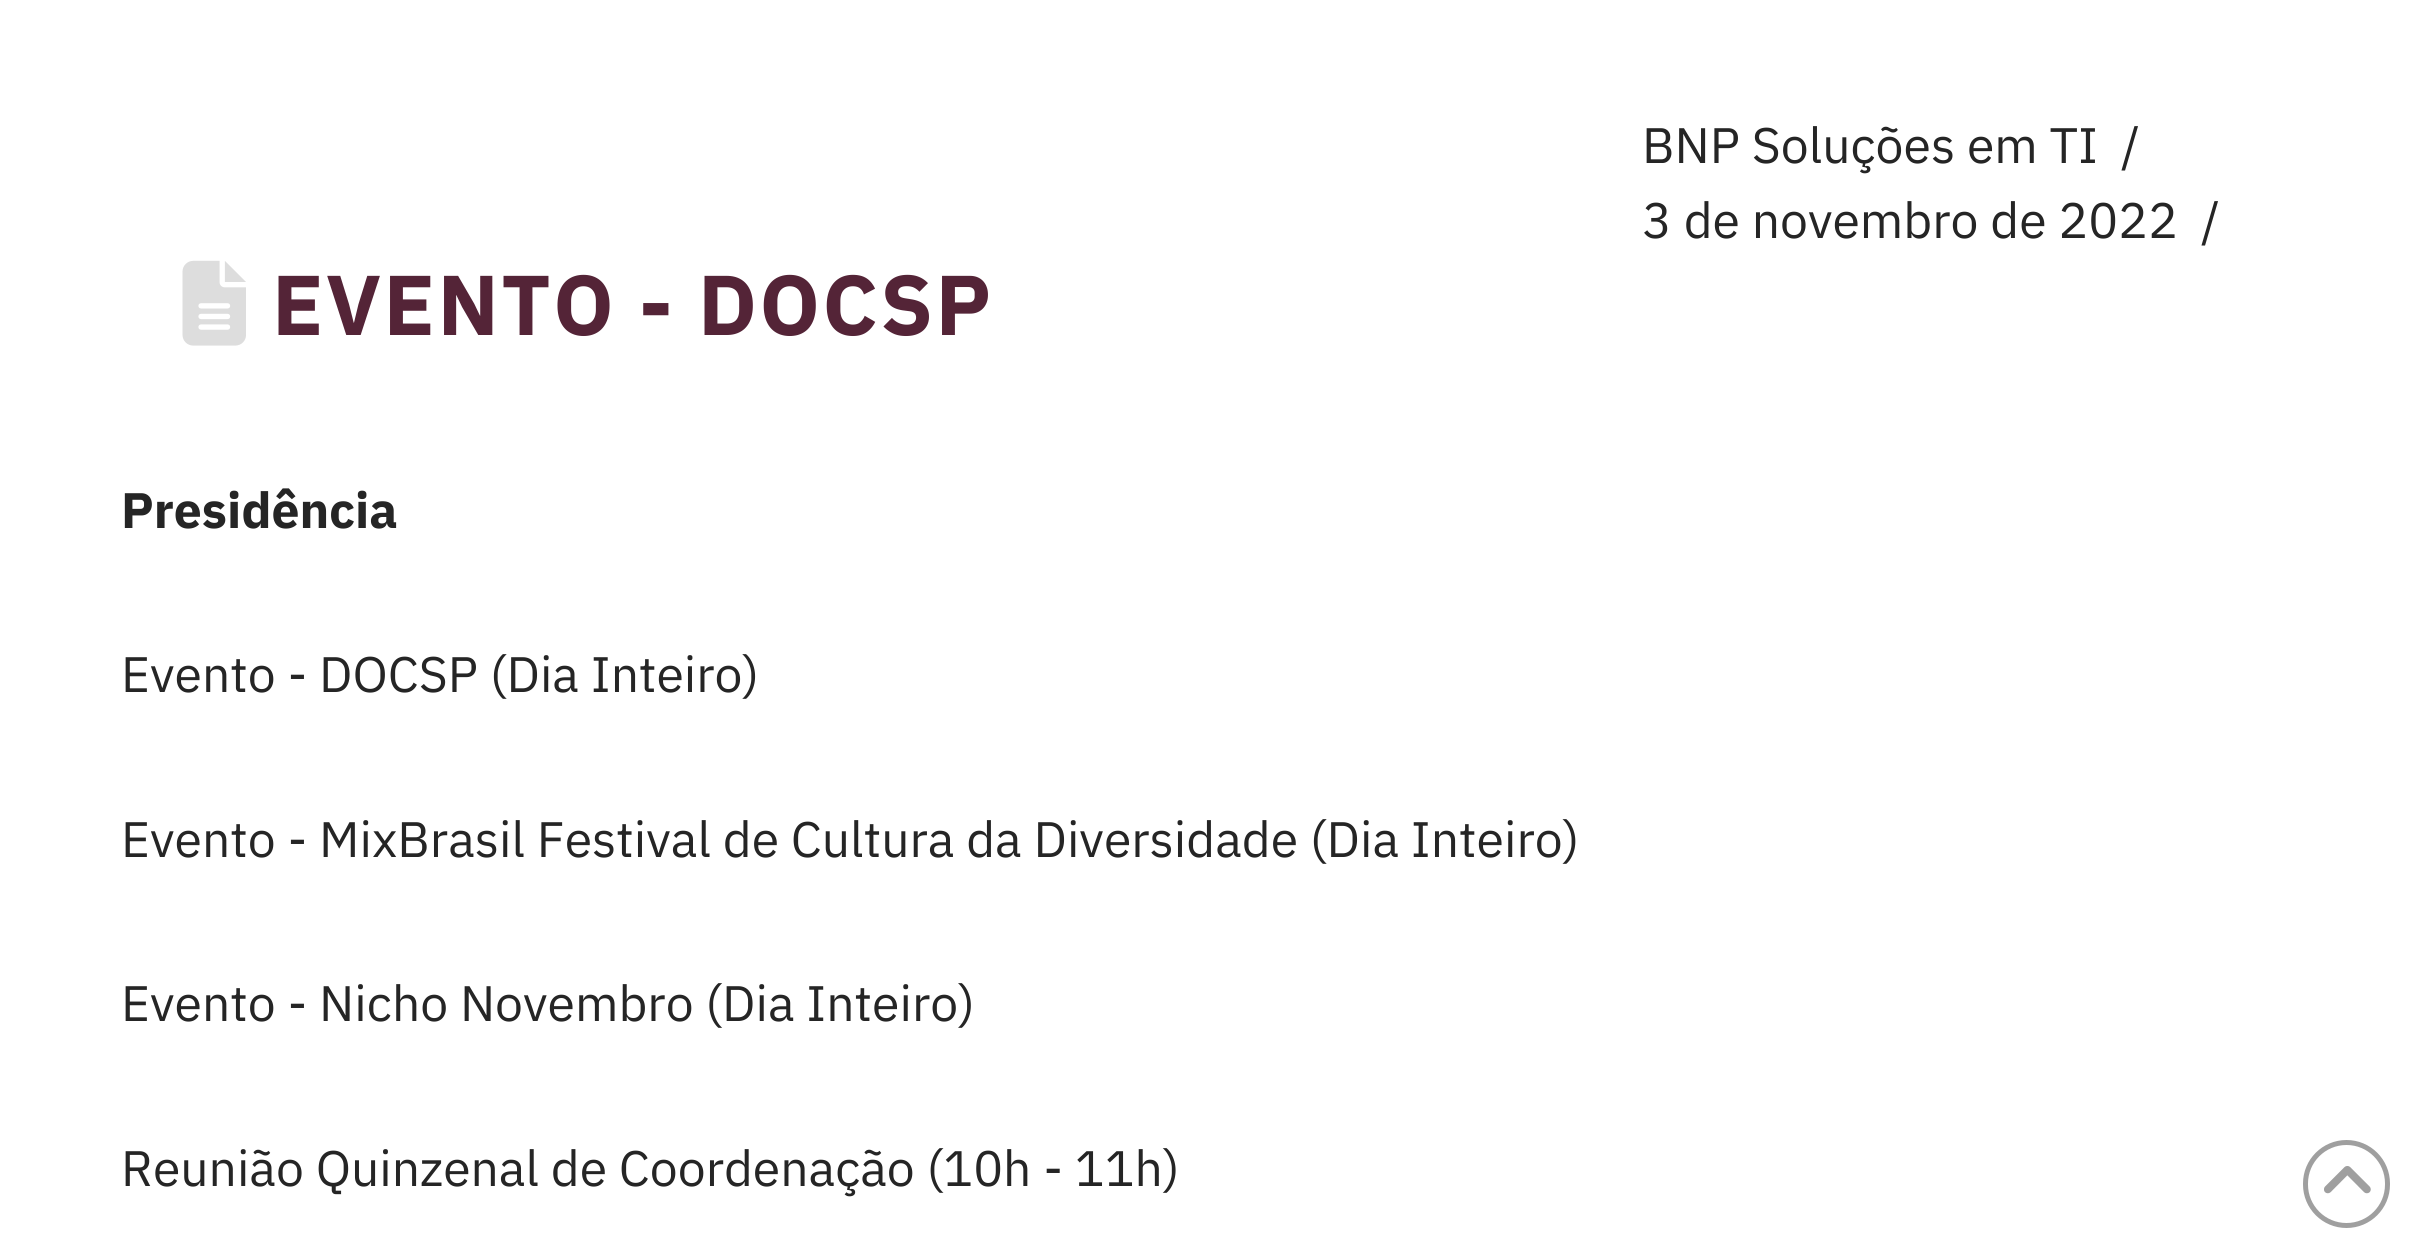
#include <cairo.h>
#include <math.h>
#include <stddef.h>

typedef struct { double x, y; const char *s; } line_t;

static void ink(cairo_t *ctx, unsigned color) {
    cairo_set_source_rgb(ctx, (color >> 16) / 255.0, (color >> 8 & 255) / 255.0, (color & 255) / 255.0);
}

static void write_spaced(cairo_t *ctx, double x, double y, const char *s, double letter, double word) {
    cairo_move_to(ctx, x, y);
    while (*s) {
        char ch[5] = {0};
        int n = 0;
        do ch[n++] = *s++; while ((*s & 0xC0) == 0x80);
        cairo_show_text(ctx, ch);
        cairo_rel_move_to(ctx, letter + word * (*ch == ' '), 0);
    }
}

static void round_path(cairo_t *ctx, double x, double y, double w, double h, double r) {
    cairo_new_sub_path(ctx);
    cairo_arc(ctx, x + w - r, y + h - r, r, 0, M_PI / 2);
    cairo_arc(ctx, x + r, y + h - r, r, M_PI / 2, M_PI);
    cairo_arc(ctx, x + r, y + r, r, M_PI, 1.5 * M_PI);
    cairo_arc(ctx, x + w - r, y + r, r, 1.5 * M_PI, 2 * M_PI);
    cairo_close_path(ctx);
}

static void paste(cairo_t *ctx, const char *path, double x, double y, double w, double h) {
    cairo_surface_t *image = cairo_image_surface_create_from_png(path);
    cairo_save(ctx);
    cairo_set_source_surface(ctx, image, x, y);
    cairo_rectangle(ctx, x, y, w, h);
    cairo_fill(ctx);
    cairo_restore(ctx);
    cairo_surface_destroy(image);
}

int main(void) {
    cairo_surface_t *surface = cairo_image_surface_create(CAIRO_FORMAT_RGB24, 2414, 1252);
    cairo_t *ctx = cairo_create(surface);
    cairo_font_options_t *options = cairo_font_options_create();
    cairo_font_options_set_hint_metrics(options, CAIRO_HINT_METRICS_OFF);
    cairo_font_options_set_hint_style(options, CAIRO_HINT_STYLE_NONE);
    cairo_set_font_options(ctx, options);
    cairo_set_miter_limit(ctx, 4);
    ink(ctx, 0xFFFFFF);
    cairo_paint(ctx);
    cairo_select_font_face(ctx, "IBM Plex Sans", CAIRO_FONT_SLANT_NORMAL, CAIRO_FONT_WEIGHT_NORMAL);
    cairo_set_font_size(ctx, 49.85);
    ink(ctx, 0x252525);
    {
        static const line_t items[] = {
            {1642, 163, "BNP Soluções em TI"},
            {2121, 163, "/"},
            {1642, 238, "3 de novembro de 2022"},
            {2201, 238, "/"},
        };
        for (size_t i = 0; i < sizeof items / sizeof *items; i++) {
            cairo_move_to(ctx, items[i].x, items[i].y);
            cairo_show_text(ctx, items[i].s);
        }
    }
    paste(ctx, "media/1.png", 182, 260, 64, 86);
    cairo_select_font_face(ctx, "IBM Plex Sans", CAIRO_FONT_SLANT_NORMAL, CAIRO_FONT_WEIGHT_BOLD);
    cairo_set_font_size(ctx, 84.75);
    ink(ctx, 0x542437);
    write_spaced(ctx, 272, 335, "EVENTO - DOCSP", 2.5, 0);
    cairo_set_font_size(ctx, 49.85);
    ink(ctx, 0x252525);
    cairo_move_to(ctx, 121, 528);
    cairo_show_text(ctx, "Presidência");
    cairo_select_font_face(ctx, "IBM Plex Sans", CAIRO_FONT_SLANT_NORMAL, CAIRO_FONT_WEIGHT_NORMAL);
    {
        static const line_t items[] = {
            {121, 692, "Evento - DOCSP (Dia Inteiro)"},
            {121, 857, "Evento - MixBrasil Festival de Cultura da Diversidade (Dia Inteiro)"},
            {121, 1021, "Evento - Nicho Novembro (Dia Inteiro)"},
            {121, 1186, "Reunião Quinzenal de Coordenação (10h - 11h)"},
        };
        for (size_t i = 0; i < sizeof items / sizeof *items; i++) {
            cairo_move_to(ctx, items[i].x, items[i].y);
            cairo_show_text(ctx, items[i].s);
        }
    }
    round_path(ctx, 2305.5, 1142.5, 82, 83, 41);
    ink(ctx, 0x9F9F9F);
    cairo_set_line_width(ctx, 5);
    cairo_stroke(ctx);
    paste(ctx, "media/2.png", 2324, 1166, 47, 28);
    cairo_surface_write_to_png(surface, "image.png");
    cairo_font_options_destroy(options);
    cairo_destroy(ctx);
    cairo_surface_destroy(surface);
    return 0;
}
